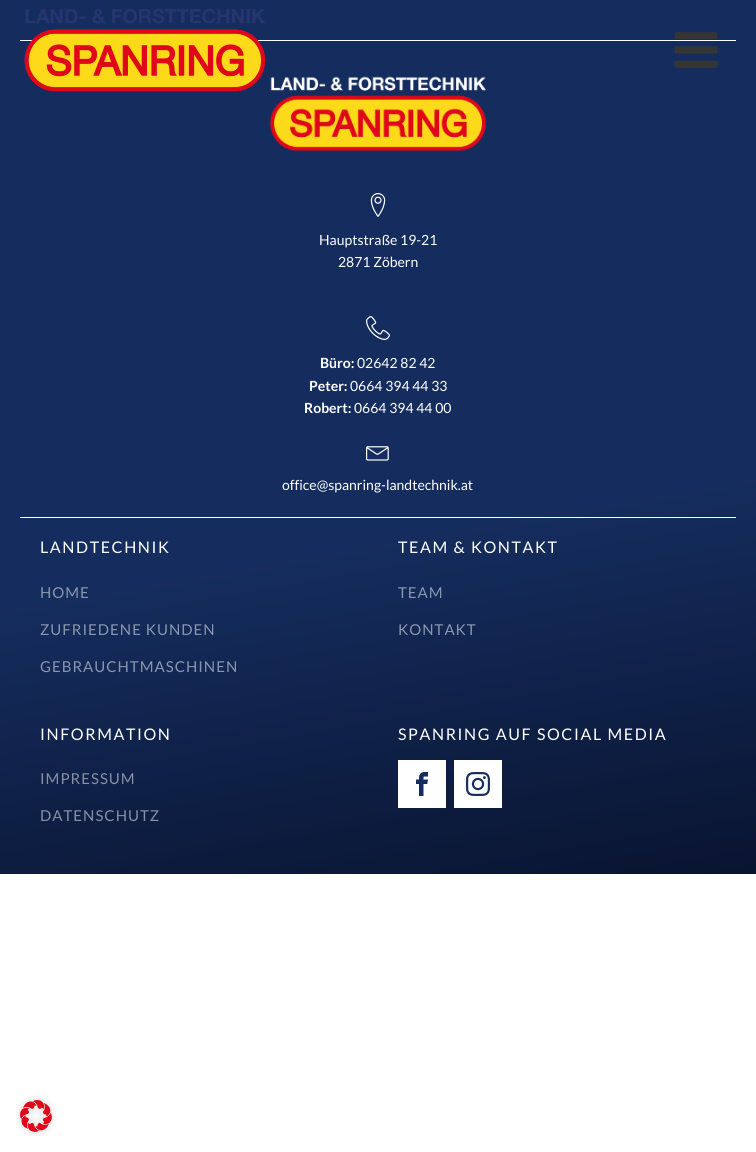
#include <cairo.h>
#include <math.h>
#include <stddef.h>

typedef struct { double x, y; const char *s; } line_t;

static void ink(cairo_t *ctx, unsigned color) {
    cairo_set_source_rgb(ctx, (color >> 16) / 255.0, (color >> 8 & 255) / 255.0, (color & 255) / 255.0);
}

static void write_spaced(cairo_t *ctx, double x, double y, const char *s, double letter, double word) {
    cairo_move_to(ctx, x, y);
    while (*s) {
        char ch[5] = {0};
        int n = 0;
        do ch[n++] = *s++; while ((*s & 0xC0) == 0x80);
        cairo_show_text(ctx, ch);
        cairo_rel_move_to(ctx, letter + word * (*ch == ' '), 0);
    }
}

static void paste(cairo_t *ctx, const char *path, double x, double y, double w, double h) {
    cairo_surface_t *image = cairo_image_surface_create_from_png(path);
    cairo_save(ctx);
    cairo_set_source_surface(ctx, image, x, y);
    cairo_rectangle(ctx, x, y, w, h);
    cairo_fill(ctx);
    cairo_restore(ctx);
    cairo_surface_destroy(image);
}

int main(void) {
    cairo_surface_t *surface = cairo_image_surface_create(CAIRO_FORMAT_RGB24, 756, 1152);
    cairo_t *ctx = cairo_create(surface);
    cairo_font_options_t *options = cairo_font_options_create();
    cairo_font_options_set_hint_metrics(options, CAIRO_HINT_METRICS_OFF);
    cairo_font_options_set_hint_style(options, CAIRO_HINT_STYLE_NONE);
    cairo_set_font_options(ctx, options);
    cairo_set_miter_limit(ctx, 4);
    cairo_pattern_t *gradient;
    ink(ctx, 0xFFFFFF);
    cairo_paint(ctx);
    gradient = cairo_pattern_create_linear(292, -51, 464, 925);
    cairo_pattern_add_color_stop_rgba(gradient, 0.6, 0.082, 0.176, 0.369, 1);
    cairo_pattern_add_color_stop_rgba(gradient, 1, 0.035, 0.078, 0.188, 1);
    cairo_set_source(ctx, gradient);
    cairo_pattern_destroy(gradient);
    cairo_rectangle(ctx, 0, 0, 756, 874);
    cairo_fill(ctx);
    ink(ctx, 0xFFFFFF);
    cairo_rectangle(ctx, 20, 40, 716, 1);
    cairo_fill(ctx);
    paste(ctx, "media/1.png", 24, 8, 242, 84);
    paste(ctx, "media/2.png", 674, 32, 44, 36);
    cairo_rectangle(ctx, 20, 517, 716, 1);
    cairo_fill(ctx);
    paste(ctx, "media/3.png", 269, 76, 218, 76);
    paste(ctx, "media/4.png", 370, 193, 16, 24);
    cairo_select_font_face(ctx, "Lato", CAIRO_FONT_SLANT_NORMAL, CAIRO_FONT_WEIGHT_NORMAL);
    cairo_set_font_size(ctx, 14);
    cairo_move_to(ctx, 319, 245);
    cairo_show_text(ctx, "Hauptstraße 19-21");
    cairo_move_to(ctx, 338, 267);
    cairo_show_text(ctx, "2871 Zöbern");
    paste(ctx, "media/5.png", 366, 316, 24, 24);
    cairo_select_font_face(ctx, "Lato", CAIRO_FONT_SLANT_NORMAL, CAIRO_FONT_WEIGHT_BOLD);
    cairo_move_to(ctx, 320, 368);
    cairo_show_text(ctx, "Büro:");
    cairo_select_font_face(ctx, "Lato", CAIRO_FONT_SLANT_NORMAL, CAIRO_FONT_WEIGHT_NORMAL);
    cairo_move_to(ctx, 357, 368);
    cairo_show_text(ctx, "02642 82 42");
    cairo_select_font_face(ctx, "Lato", CAIRO_FONT_SLANT_NORMAL, CAIRO_FONT_WEIGHT_BOLD);
    cairo_move_to(ctx, 309, 391);
    cairo_show_text(ctx, "Peter:");
    cairo_select_font_face(ctx, "Lato", CAIRO_FONT_SLANT_NORMAL, CAIRO_FONT_WEIGHT_NORMAL);
    cairo_move_to(ctx, 350, 391);
    cairo_show_text(ctx, "0664 394 44 33");
    cairo_select_font_face(ctx, "Lato", CAIRO_FONT_SLANT_NORMAL, CAIRO_FONT_WEIGHT_BOLD);
    cairo_move_to(ctx, 304, 413);
    cairo_show_text(ctx, "Robert:");
    cairo_select_font_face(ctx, "Lato", CAIRO_FONT_SLANT_NORMAL, CAIRO_FONT_WEIGHT_NORMAL);
    cairo_move_to(ctx, 354, 413);
    cairo_show_text(ctx, "0664 394 44 00");
    paste(ctx, "media/6.png", 366, 446, 23, 15);
    cairo_move_to(ctx, 282, 490);
    cairo_show_text(ctx, "office@spanring-landtechnik.at");
    cairo_set_font_size(ctx, 16);
    write_spaced(ctx, 40, 553, "LANDTECHNIK", 1.6, 0);
    cairo_set_font_size(ctx, 15);
    ink(ctx, 0x8A96AE);
    {
        static const line_t items[] = {
            {40, 598, "HOME"},
            {40, 635, "ZUFRIEDENE KUNDEN"},
            {40, 672, "GEBRAUCHTMASCHINEN"},
        };
        for (size_t i = 0; i < sizeof items / sizeof *items; i++) {
            write_spaced(ctx, items[i].x, items[i].y, items[i].s, 1, 0);
        }
    }
    cairo_set_font_size(ctx, 16);
    ink(ctx, 0xFFFFFF);
    write_spaced(ctx, 398, 553, "TEAM & KONTAKT", 1.6, 0);
    cairo_set_font_size(ctx, 15);
    ink(ctx, 0x8A96AE);
    write_spaced(ctx, 398, 598, "TEAM", 1, 0);
    write_spaced(ctx, 398, 635, "KONTAKT", 1, 0);
    cairo_set_font_size(ctx, 16);
    ink(ctx, 0xFFFFFF);
    write_spaced(ctx, 40, 740, "INFORMATION", 1.6, 0);
    cairo_set_font_size(ctx, 15);
    ink(ctx, 0x8790A4);
    write_spaced(ctx, 40, 784, "IMPRESSUM", 1, 0);
    write_spaced(ctx, 40, 821, "DATENSCHUTZ", 1, 0);
    cairo_set_font_size(ctx, 16);
    ink(ctx, 0xFFFFFF);
    write_spaced(ctx, 398, 740, "SPANRING AUF SOCIAL MEDIA", 1.6, 0);
    cairo_rectangle(ctx, 398, 760, 48, 48);
    cairo_fill(ctx);
    paste(ctx, "media/7.png", 416, 772, 12, 24);
    cairo_rectangle(ctx, 454, 760, 48, 48);
    cairo_fill(ctx);
    paste(ctx, "media/8.png", 466, 772, 24, 24);
    paste(ctx, "media/9.png", 16, 1096, 40, 40);
    cairo_surface_write_to_png(surface, "image.png");
    cairo_font_options_destroy(options);
    cairo_destroy(ctx);
    cairo_surface_destroy(surface);
    return 0;
}
